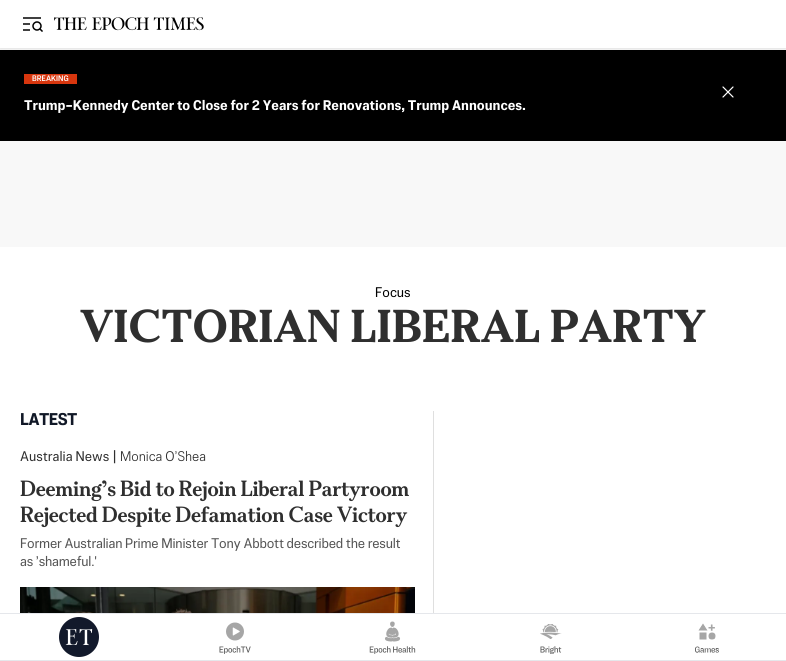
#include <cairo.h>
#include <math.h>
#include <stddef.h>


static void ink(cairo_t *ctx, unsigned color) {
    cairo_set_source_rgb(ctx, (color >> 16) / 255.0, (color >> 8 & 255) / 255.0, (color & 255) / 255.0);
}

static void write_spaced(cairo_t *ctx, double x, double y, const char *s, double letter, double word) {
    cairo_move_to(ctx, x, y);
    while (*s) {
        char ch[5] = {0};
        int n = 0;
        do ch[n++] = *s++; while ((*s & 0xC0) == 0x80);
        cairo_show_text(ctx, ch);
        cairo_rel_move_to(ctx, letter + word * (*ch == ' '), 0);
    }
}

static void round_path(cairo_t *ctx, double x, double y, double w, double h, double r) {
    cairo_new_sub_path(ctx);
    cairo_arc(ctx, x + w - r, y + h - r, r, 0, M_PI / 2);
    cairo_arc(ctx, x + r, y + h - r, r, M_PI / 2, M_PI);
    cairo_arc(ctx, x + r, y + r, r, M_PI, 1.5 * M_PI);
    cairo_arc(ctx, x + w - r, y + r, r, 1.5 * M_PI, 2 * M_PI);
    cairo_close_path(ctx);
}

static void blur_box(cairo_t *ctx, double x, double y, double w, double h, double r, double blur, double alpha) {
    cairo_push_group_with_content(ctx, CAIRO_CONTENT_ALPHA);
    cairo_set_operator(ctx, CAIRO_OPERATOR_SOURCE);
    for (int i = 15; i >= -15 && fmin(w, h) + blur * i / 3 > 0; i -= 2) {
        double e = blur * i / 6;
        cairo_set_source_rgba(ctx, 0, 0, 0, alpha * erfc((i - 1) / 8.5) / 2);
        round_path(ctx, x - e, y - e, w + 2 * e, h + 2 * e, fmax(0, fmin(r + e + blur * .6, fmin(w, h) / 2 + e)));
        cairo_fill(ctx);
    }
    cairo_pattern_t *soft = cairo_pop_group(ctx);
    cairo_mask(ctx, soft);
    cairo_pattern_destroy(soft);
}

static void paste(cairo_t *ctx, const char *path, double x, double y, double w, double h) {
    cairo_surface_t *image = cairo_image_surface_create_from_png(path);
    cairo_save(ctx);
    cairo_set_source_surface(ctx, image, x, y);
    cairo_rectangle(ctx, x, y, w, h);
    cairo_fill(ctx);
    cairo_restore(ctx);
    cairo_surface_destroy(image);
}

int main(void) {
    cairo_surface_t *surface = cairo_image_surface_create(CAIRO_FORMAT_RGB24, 786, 661);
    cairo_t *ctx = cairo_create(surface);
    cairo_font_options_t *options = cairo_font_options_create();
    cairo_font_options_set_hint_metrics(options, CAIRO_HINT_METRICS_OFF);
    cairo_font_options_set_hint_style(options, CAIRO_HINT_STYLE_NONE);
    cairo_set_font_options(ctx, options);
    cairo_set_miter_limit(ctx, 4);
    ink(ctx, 0xFFFFFF);
    cairo_paint(ctx);
    ink(ctx, 0x000000);
    cairo_rectangle(ctx, 0, 50, 786, 91);
    cairo_fill(ctx);
    cairo_save(ctx);
    cairo_rectangle(ctx, 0, 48, 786, 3);
    cairo_clip(ctx);
    ink(ctx, 0x000000);
    blur_box(ctx, 0, 1, 786, 48, 0, 2, 0.15);
    cairo_restore(ctx);
    paste(ctx, "media/1.png", 23, 17, 20, 15);
    paste(ctx, "media/2.png", 54, 17, 150, 14);
    ink(ctx, 0xD7360E);
    cairo_rectangle(ctx, 24, 74, 53, 10);
    cairo_fill(ctx);
    cairo_select_font_face(ctx, "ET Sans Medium", CAIRO_FONT_SLANT_NORMAL, CAIRO_FONT_WEIGHT_NORMAL);
    cairo_set_font_size(ctx, 8);
    ink(ctx, 0xFFFFFF);
    cairo_move_to(ctx, 32, 81);
    cairo_show_text(ctx, "BREAKING");
    cairo_select_font_face(ctx, "ET Sans", CAIRO_FONT_SLANT_NORMAL, CAIRO_FONT_WEIGHT_BOLD);
    cairo_set_font_size(ctx, 14);
    cairo_move_to(ctx, 24, 110);
    cairo_show_text(ctx, "Trump–Kennedy Center to Close for 2 Years for Renovations, Trump Announces.");
    cairo_new_path(ctx);
    cairo_move_to(ctx, 723, 97);
    cairo_line_to(ctx, 733, 87);
    cairo_move_to(ctx, 723, 87);
    cairo_line_to(ctx, 733, 97);
    cairo_set_line_width(ctx, 1.2);
    cairo_set_line_cap(ctx, CAIRO_LINE_CAP_ROUND);
    cairo_set_line_join(ctx, CAIRO_LINE_JOIN_ROUND);
    cairo_stroke(ctx);
    ink(ctx, 0xF8F8F8);
    cairo_rectangle(ctx, 0, 141, 786, 106);
    cairo_fill(ctx);
    cairo_select_font_face(ctx, "ET Sans", CAIRO_FONT_SLANT_NORMAL, CAIRO_FONT_WEIGHT_NORMAL);
    ink(ctx, 0x000000);
    cairo_move_to(ctx, 375, 297);
    cairo_show_text(ctx, "Focus");
    cairo_select_font_face(ctx, "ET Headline", CAIRO_FONT_SLANT_NORMAL, CAIRO_FONT_WEIGHT_BOLD);
    cairo_set_font_size(ctx, 46);
    ink(ctx, 0x2F2F2F);
    cairo_move_to(ctx, 80, 342);
    cairo_show_text(ctx, "VICTORIAN LIBERAL PARTY");
    ink(ctx, 0xDFDFDF);
    cairo_rectangle(ctx, 433, 411, 1, 202);
    cairo_fill(ctx);
    cairo_select_font_face(ctx, "ET Sans", CAIRO_FONT_SLANT_NORMAL, CAIRO_FONT_WEIGHT_BOLD);
    cairo_set_font_size(ctx, 17);
    ink(ctx, 0x111827);
    write_spaced(ctx, 20, 425, "LATEST", -0.5, 0);
    cairo_select_font_face(ctx, "ET Sans", CAIRO_FONT_SLANT_NORMAL, CAIRO_FONT_WEIGHT_NORMAL);
    cairo_set_font_size(ctx, 14);
    ink(ctx, 0x2F2F2F);
    cairo_move_to(ctx, 20, 461);
    cairo_show_text(ctx, "Australia News");
    cairo_move_to(ctx, 113, 461);
    cairo_show_text(ctx, "|");
    cairo_select_font_face(ctx, "ET Sans Light", CAIRO_FONT_SLANT_NORMAL, CAIRO_FONT_WEIGHT_NORMAL);
    cairo_move_to(ctx, 120, 461);
    cairo_show_text(ctx, "Monica O’Shea");
    cairo_select_font_face(ctx, "ET Headline Medium", CAIRO_FONT_SLANT_NORMAL, CAIRO_FONT_WEIGHT_NORMAL);
    cairo_set_font_size(ctx, 22);
    write_spaced(ctx, 20, 496, "Deeming’s Bid to Rejoin Liberal Partyroom", -0.3, 0);
    write_spaced(ctx, 20, 522, "Rejected Despite Defamation Case Victory", -0.3, 0);
    cairo_select_font_face(ctx, "ET Sans", CAIRO_FONT_SLANT_NORMAL, CAIRO_FONT_WEIGHT_NORMAL);
    cairo_set_font_size(ctx, 14);
    ink(ctx, 0x555555);
    write_spaced(ctx, 20, 548, "Former Australian Prime Minister Tony Abbott described the result", -0.2, 0);
    write_spaced(ctx, 20, 566, "as ’shameful.'", -0.2, 0);
    paste(ctx, "media/3.png", 20, 587, 395, 26);
    ink(ctx, 0xE5E7EB);
    cairo_rectangle(ctx, 0, 613, 786, 1);
    cairo_fill(ctx);
    cairo_rectangle(ctx, 0, 660, 786, 1);
    cairo_fill(ctx);
    paste(ctx, "media/4.png", 59, 617, 40, 40);
    paste(ctx, "media/5.png", 219, 622, 32, 32);
    paste(ctx, "media/6.png", 369, 621, 47, 33);
    paste(ctx, "media/7.png", 540, 624, 22, 30);
    paste(ctx, "media/8.png", 695, 623, 24, 30);
    cairo_surface_write_to_png(surface, "image.png");
    cairo_font_options_destroy(options);
    cairo_destroy(ctx);
    cairo_surface_destroy(surface);
    return 0;
}
